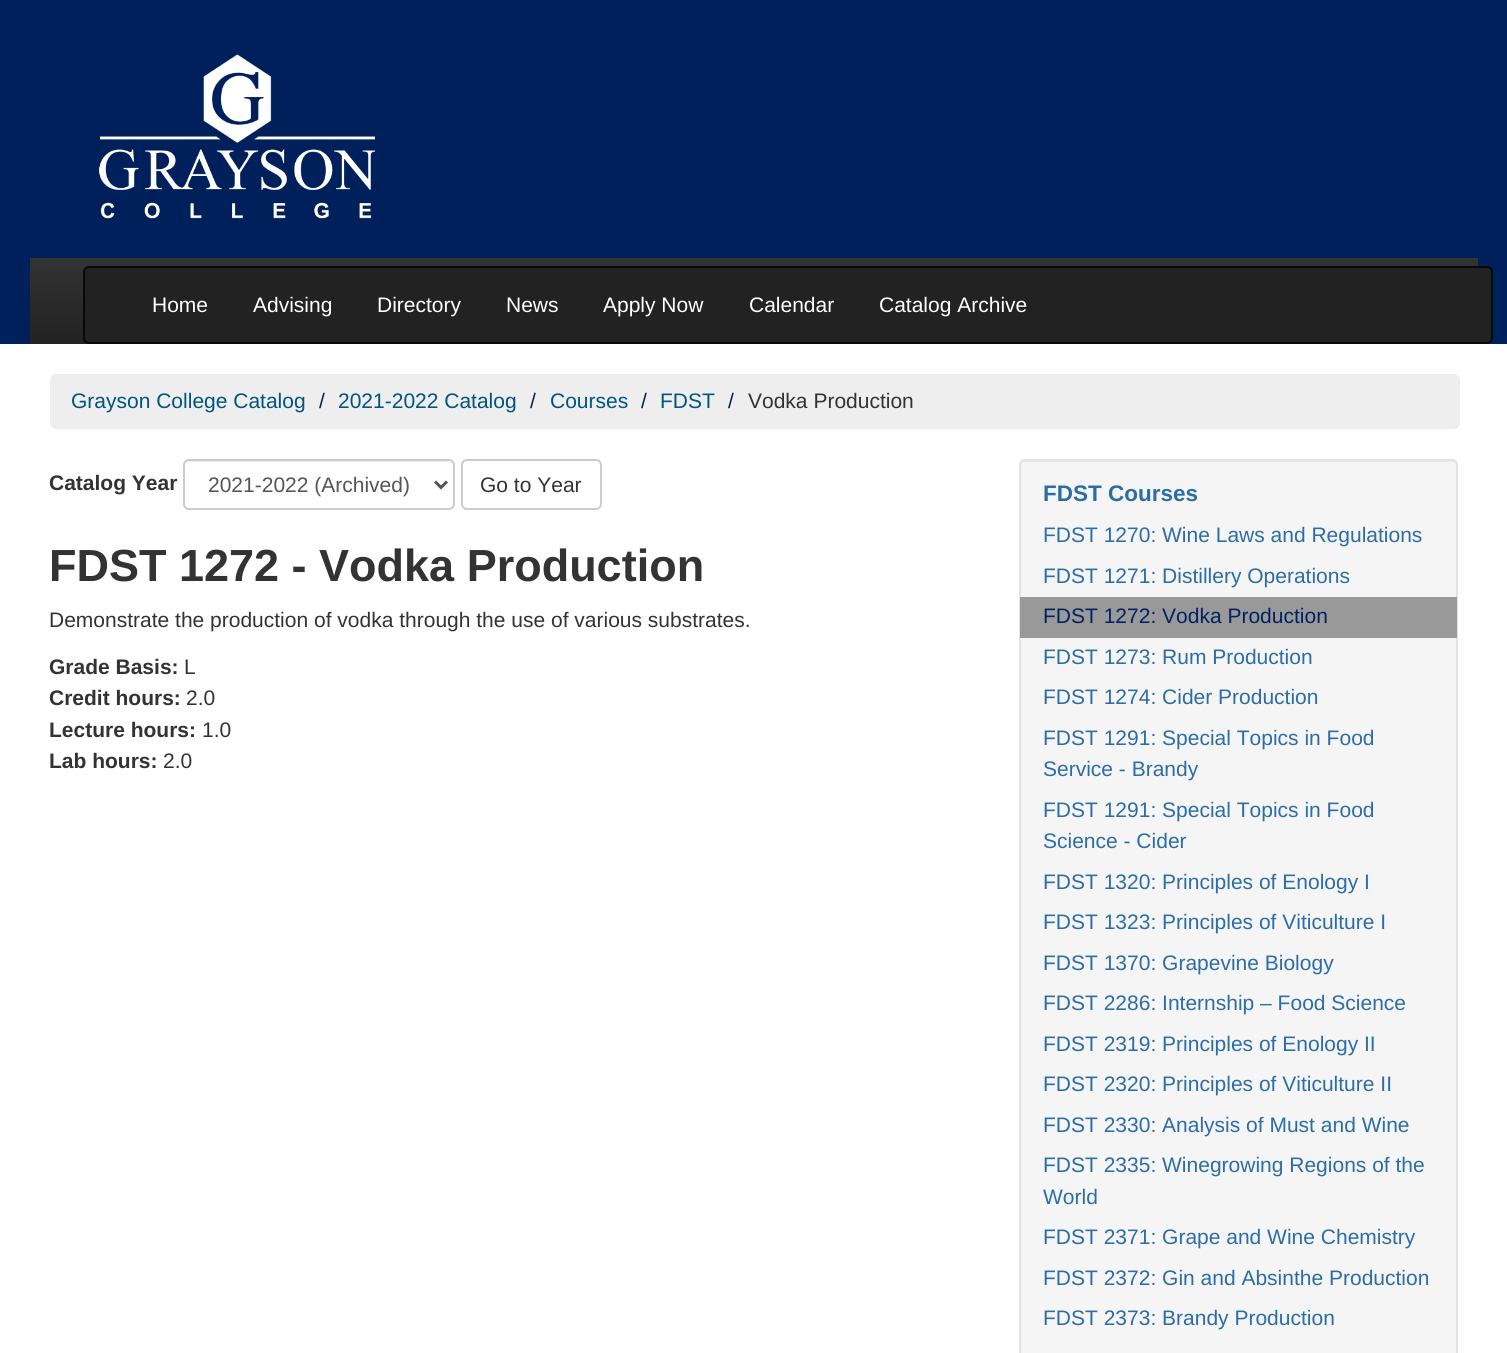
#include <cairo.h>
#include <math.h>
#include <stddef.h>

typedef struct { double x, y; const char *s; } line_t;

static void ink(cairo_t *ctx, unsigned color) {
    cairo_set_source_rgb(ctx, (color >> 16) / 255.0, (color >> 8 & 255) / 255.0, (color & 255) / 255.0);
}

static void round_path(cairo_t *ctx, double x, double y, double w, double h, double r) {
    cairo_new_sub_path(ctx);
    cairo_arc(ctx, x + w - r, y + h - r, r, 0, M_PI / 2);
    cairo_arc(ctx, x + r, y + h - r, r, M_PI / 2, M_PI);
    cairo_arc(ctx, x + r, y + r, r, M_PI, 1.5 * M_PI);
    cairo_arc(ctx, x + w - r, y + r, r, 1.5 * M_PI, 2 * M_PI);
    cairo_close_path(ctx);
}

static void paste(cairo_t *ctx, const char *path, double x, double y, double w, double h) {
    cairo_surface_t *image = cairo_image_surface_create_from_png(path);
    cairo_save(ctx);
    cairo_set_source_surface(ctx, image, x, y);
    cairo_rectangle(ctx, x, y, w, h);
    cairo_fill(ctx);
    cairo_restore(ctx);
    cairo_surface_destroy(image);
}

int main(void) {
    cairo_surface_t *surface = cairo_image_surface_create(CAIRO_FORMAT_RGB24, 1507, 1353);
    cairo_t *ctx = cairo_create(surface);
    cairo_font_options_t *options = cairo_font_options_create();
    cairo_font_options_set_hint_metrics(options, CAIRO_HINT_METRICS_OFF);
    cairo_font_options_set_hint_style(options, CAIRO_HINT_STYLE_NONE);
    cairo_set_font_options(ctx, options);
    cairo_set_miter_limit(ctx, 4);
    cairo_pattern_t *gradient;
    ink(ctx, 0xFFFFFF);
    cairo_paint(ctx);
    ink(ctx, 0x00205B);
    cairo_rectangle(ctx, 0, 0, 1507, 344);
    cairo_fill(ctx);
    paste(ctx, "media/1.png", 99, 54, 276, 165);
    gradient = cairo_pattern_create_linear(754, 258, 754, 344);
    cairo_pattern_add_color_stop_rgba(gradient, 0, 0.2, 0.2, 0.2, 1);
    cairo_pattern_add_color_stop_rgba(gradient, 1, 0.133, 0.133, 0.133, 1);
    cairo_set_source(ctx, gradient);
    cairo_pattern_destroy(gradient);
    cairo_rectangle(ctx, 30, 258, 1448, 86);
    cairo_fill(ctx);
    ink(ctx, 0x222222);
    round_path(ctx, 84, 267, 1408, 76, 5);
    cairo_fill_preserve(ctx);
    ink(ctx, 0x080808);
    cairo_stroke(ctx);
    cairo_select_font_face(ctx, "Liberation Sans", CAIRO_FONT_SLANT_NORMAL, CAIRO_FONT_WEIGHT_NORMAL);
    cairo_set_font_size(ctx, 21);
    ink(ctx, 0xFFFFFF);
    {
        static const line_t items[] = {
            {152, 312, "Home"},
            {253, 312, "Advising"},
            {377, 312, "Directory"},
            {506, 312, "News"},
            {603, 312, "Apply Now"},
            {749, 312, "Calendar"},
            {879, 312, "Catalog Archive"},
        };
        for (size_t i = 0; i < sizeof items / sizeof *items; i++) {
            cairo_move_to(ctx, items[i].x, items[i].y);
            cairo_show_text(ctx, items[i].s);
        }
    }
    ink(ctx, 0xEEEEEE);
    round_path(ctx, 50, 374, 1410, 55, 6);
    cairo_fill(ctx);
    ink(ctx, 0x005580);
    cairo_move_to(ctx, 71, 408);
    cairo_show_text(ctx, "Grayson College Catalog");
    ink(ctx, 0x002254);
    cairo_move_to(ctx, 319, 408);
    cairo_show_text(ctx, "/");
    ink(ctx, 0x005580);
    cairo_move_to(ctx, 338, 408);
    cairo_show_text(ctx, "2021-2022 Catalog");
    ink(ctx, 0x002254);
    cairo_move_to(ctx, 530, 408);
    cairo_show_text(ctx, "/");
    ink(ctx, 0x005580);
    cairo_move_to(ctx, 550, 408);
    cairo_show_text(ctx, "Courses");
    ink(ctx, 0x002254);
    cairo_move_to(ctx, 641, 408);
    cairo_show_text(ctx, "/");
    ink(ctx, 0x005580);
    cairo_move_to(ctx, 660, 408);
    cairo_show_text(ctx, "FDST");
    ink(ctx, 0x002254);
    cairo_move_to(ctx, 728, 408);
    cairo_show_text(ctx, "/");
    ink(ctx, 0x333333);
    cairo_move_to(ctx, 748, 408);
    cairo_show_text(ctx, "Vodka Production");
    cairo_select_font_face(ctx, "Liberation Sans", CAIRO_FONT_SLANT_NORMAL, CAIRO_FONT_WEIGHT_BOLD);
    cairo_move_to(ctx, 49, 490);
    cairo_show_text(ctx, "Catalog Year");
    ink(ctx, 0xECECEC);
    cairo_new_path(ctx);
    cairo_move_to(ctx, 189, 462);
    cairo_line_to(ctx, 448, 462);
    cairo_curve_to(ctx, 451, 462, 453, 464, 453, 466);
    cairo_curve_to(ctx, 453, 463, 451, 461, 448, 461);
    cairo_line_to(ctx, 190, 461);
    cairo_curve_to(ctx, 188, 461, 187, 462, 186, 463);
    cairo_close_path(ctx);
    cairo_fill(ctx);
    round_path(ctx, 184, 460, 270, 49, 5);
    ink(ctx, 0xCCCCCC);
    cairo_stroke(ctx);
    cairo_new_path(ctx);
    cairo_move_to(ctx, 435, 481.5);
    cairo_line_to(ctx, 441, 487.5);
    cairo_line_to(ctx, 447, 481.5);
    ink(ctx, 0x555555);
    cairo_set_line_width(ctx, 3);
    cairo_stroke(ctx);
    cairo_select_font_face(ctx, "Liberation Sans", CAIRO_FONT_SLANT_NORMAL, CAIRO_FONT_WEIGHT_NORMAL);
    cairo_move_to(ctx, 208, 492);
    cairo_show_text(ctx, "2021-2022 (Archived)");
    round_path(ctx, 462, 460, 139, 49, 5);
    ink(ctx, 0xCCCCCC);
    cairo_set_line_width(ctx, 2);
    cairo_stroke(ctx);
    ink(ctx, 0x333333);
    cairo_move_to(ctx, 480, 492);
    cairo_show_text(ctx, "Go to Year");
    cairo_select_font_face(ctx, "Liberation Sans", CAIRO_FONT_SLANT_NORMAL, CAIRO_FONT_WEIGHT_BOLD);
    cairo_set_font_size(ctx, 45);
    cairo_move_to(ctx, 49, 581);
    cairo_show_text(ctx, "FDST 1272 - Vodka Production");
    cairo_select_font_face(ctx, "Liberation Sans", CAIRO_FONT_SLANT_NORMAL, CAIRO_FONT_WEIGHT_NORMAL);
    cairo_set_font_size(ctx, 21);
    cairo_move_to(ctx, 49, 627);
    cairo_show_text(ctx, "Demonstrate the production of vodka through the use of various substrates.");
    cairo_select_font_face(ctx, "Liberation Sans", CAIRO_FONT_SLANT_NORMAL, CAIRO_FONT_WEIGHT_BOLD);
    cairo_move_to(ctx, 49, 674);
    cairo_show_text(ctx, "Grade Basis:");
    cairo_select_font_face(ctx, "Liberation Sans", CAIRO_FONT_SLANT_NORMAL, CAIRO_FONT_WEIGHT_NORMAL);
    cairo_move_to(ctx, 184, 674);
    cairo_show_text(ctx, "L");
    cairo_select_font_face(ctx, "Liberation Sans", CAIRO_FONT_SLANT_NORMAL, CAIRO_FONT_WEIGHT_BOLD);
    cairo_move_to(ctx, 49, 705);
    cairo_show_text(ctx, "Credit hours:");
    cairo_select_font_face(ctx, "Liberation Sans", CAIRO_FONT_SLANT_NORMAL, CAIRO_FONT_WEIGHT_NORMAL);
    cairo_move_to(ctx, 186, 705);
    cairo_show_text(ctx, "2.0");
    cairo_select_font_face(ctx, "Liberation Sans", CAIRO_FONT_SLANT_NORMAL, CAIRO_FONT_WEIGHT_BOLD);
    cairo_move_to(ctx, 49, 737);
    cairo_show_text(ctx, "Lecture hours:");
    cairo_select_font_face(ctx, "Liberation Sans", CAIRO_FONT_SLANT_NORMAL, CAIRO_FONT_WEIGHT_NORMAL);
    cairo_move_to(ctx, 202, 737);
    cairo_show_text(ctx, "1.0");
    cairo_select_font_face(ctx, "Liberation Sans", CAIRO_FONT_SLANT_NORMAL, CAIRO_FONT_WEIGHT_BOLD);
    cairo_move_to(ctx, 49, 768);
    cairo_show_text(ctx, "Lab hours:");
    cairo_select_font_face(ctx, "Liberation Sans", CAIRO_FONT_SLANT_NORMAL, CAIRO_FONT_WEIGHT_NORMAL);
    cairo_move_to(ctx, 163, 768);
    cairo_show_text(ctx, "2.0");
    ink(ctx, 0xF5F5F5);
    round_path(ctx, 1019, 459, 439, 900, 6);
    cairo_fill(ctx);
    ink(ctx, 0xE9E9E9);
    cairo_new_path(ctx);
    cairo_move_to(ctx, 1024, 462);
    cairo_line_to(ctx, 1452, 462);
    cairo_curve_to(ctx, 1454, 462, 1456, 464, 1456, 466);
    cairo_line_to(ctx, 1456, 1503);
    cairo_curve_to(ctx, 1457, 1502, 1457, 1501, 1457, 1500);
    cairo_line_to(ctx, 1457, 466);
    cairo_curve_to(ctx, 1457, 463, 1455, 461, 1452, 461);
    cairo_line_to(ctx, 1025, 461);
    cairo_curve_to(ctx, 1022, 461, 1020, 463, 1020, 466);
    cairo_curve_to(ctx, 1020, 464, 1022, 462, 1024, 462);
    cairo_close_path(ctx);
    cairo_fill(ctx);
    round_path(ctx, 1020, 460, 437, 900, 5);
    ink(ctx, 0xE3E3E3);
    cairo_stroke(ctx);
    cairo_select_font_face(ctx, "Liberation Sans", CAIRO_FONT_SLANT_NORMAL, CAIRO_FONT_WEIGHT_BOLD);
    cairo_set_font_size(ctx, 22.5);
    ink(ctx, 0x2C6DA6);
    cairo_move_to(ctx, 1043, 501);
    cairo_show_text(ctx, "FDST Courses");
    cairo_select_font_face(ctx, "Liberation Sans", CAIRO_FONT_SLANT_NORMAL, CAIRO_FONT_WEIGHT_NORMAL);
    cairo_set_font_size(ctx, 21);
    cairo_move_to(ctx, 1043, 542);
    cairo_show_text(ctx, "FDST 1270: Wine Laws and Regulations");
    cairo_move_to(ctx, 1043, 583);
    cairo_show_text(ctx, "FDST 1271: Distillery Operations");
    ink(ctx, 0x999999);
    cairo_rectangle(ctx, 1020, 597, 437, 41);
    cairo_fill(ctx);
    ink(ctx, 0x002265);
    cairo_move_to(ctx, 1043, 623);
    cairo_show_text(ctx, "FDST 1272: Vodka Production");
    ink(ctx, 0x2C6DA6);
    {
        static const line_t items[] = {
            {1043, 664, "FDST 1273: Rum Production"},
            {1043, 704, "FDST 1274: Cider Production"},
            {1043, 745, "FDST 1291: Special Topics in Food"},
            {1043, 776, "Service - Brandy"},
            {1043, 817, "FDST 1291: Special Topics in Food"},
            {1043, 848, "Science - Cider"},
            {1043, 889, "FDST 1320: Principles of Enology I"},
            {1043, 929, "FDST 1323: Principles of Viticulture I"},
            {1043, 970, "FDST 1370: Grapevine Biology"},
            {1043, 1010, "FDST 2286: Internship – Food Science"},
            {1043, 1051, "FDST 2319: Principles of Enology II"},
            {1043, 1091, "FDST 2320: Principles of Viticulture II"},
            {1043, 1132, "FDST 2330: Analysis of Must and Wine"},
            {1043, 1172, "FDST 2335: Winegrowing Regions of the"},
            {1043, 1204, "World"},
            {1043, 1244, "FDST 2371: Grape and Wine Chemistry"},
            {1043, 1285, "FDST 2372: Gin and Absinthe Production"},
            {1043, 1325, "FDST 2373: Brandy Production"},
        };
        for (size_t i = 0; i < sizeof items / sizeof *items; i++) {
            cairo_move_to(ctx, items[i].x, items[i].y);
            cairo_show_text(ctx, items[i].s);
        }
    }
    cairo_surface_write_to_png(surface, "image.png");
    cairo_font_options_destroy(options);
    cairo_destroy(ctx);
    cairo_surface_destroy(surface);
    return 0;
}
